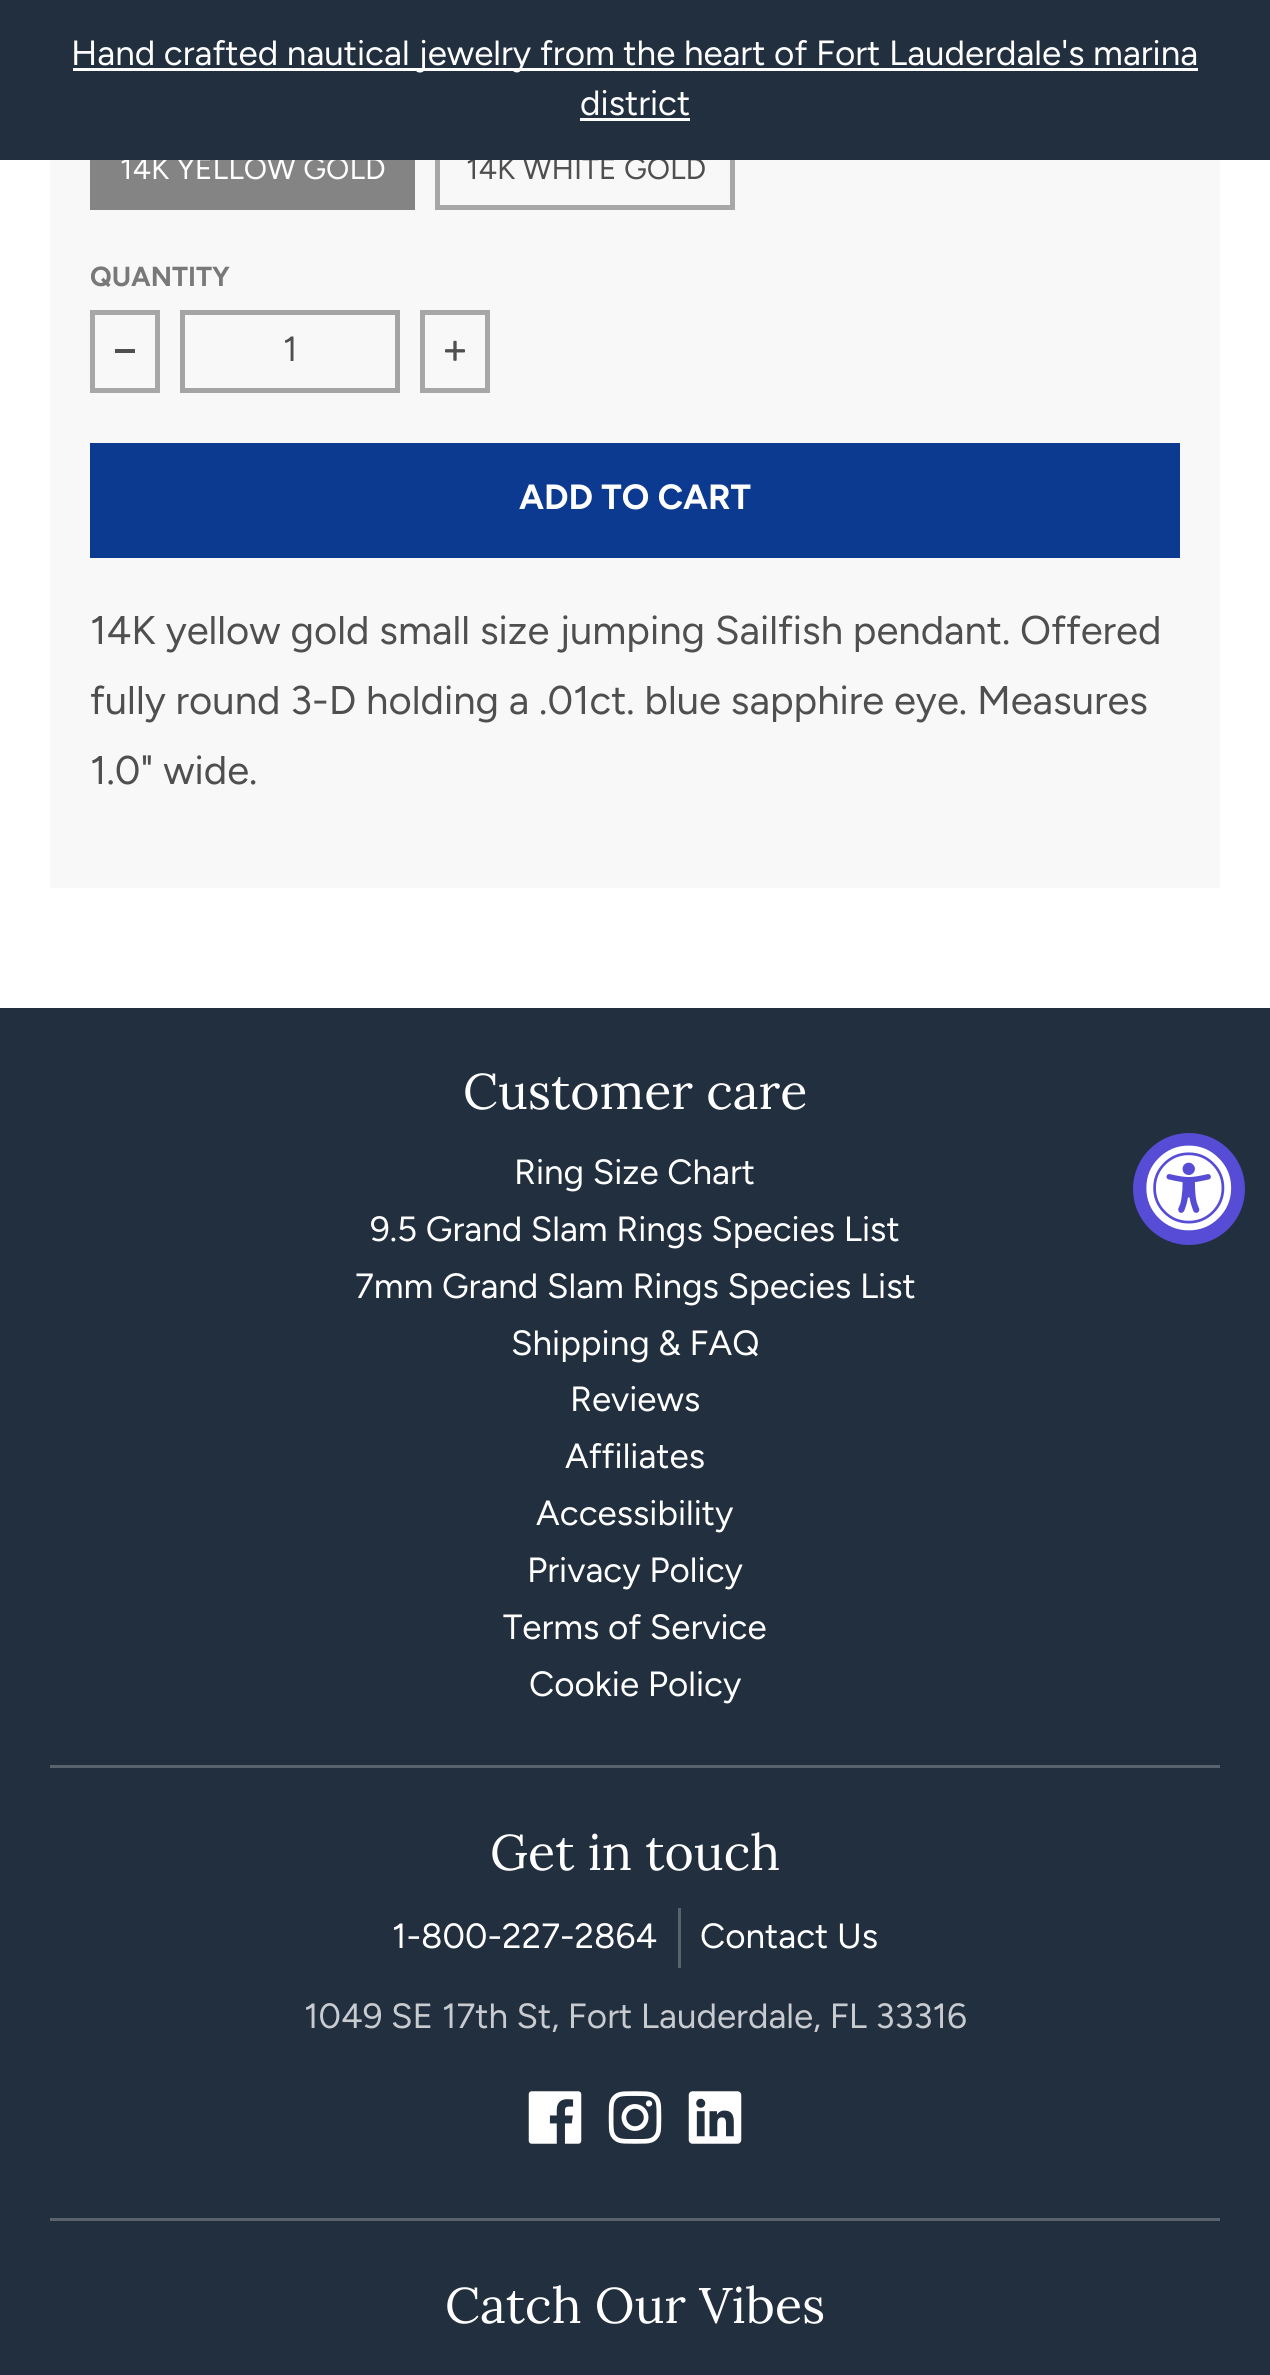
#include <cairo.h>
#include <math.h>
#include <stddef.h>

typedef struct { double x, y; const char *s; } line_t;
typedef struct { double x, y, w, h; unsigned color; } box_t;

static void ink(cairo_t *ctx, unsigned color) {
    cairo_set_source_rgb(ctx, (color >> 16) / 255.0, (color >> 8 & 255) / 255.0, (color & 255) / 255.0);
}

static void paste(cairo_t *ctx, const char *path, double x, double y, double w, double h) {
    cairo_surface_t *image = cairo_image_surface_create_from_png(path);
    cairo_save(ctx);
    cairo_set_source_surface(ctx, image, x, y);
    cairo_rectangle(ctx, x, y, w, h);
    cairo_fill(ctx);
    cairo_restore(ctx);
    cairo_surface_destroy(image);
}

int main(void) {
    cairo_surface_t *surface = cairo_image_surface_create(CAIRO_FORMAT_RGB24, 1270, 2375);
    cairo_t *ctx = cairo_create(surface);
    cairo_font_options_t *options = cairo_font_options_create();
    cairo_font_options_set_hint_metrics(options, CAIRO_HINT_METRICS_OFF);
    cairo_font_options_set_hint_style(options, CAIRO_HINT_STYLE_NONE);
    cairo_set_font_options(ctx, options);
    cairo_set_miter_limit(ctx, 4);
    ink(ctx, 0x222F3E);
    cairo_paint(ctx);
    {
        static const box_t items[] = {
            {0, 160, 1270, 848, 0xFFFFFF},
            {50, 160, 1170, 728, 0xF8F8F8},
            {90, 160, 325, 50, 0x848484},
        };
        for (size_t i = 0; i < sizeof items / sizeof *items; i++) {
            ink(ctx, items[i].color);
            cairo_rectangle(ctx, items[i].x, items[i].y, items[i].w, items[i].h);
            cairo_fill(ctx);
        }
    }
    cairo_select_font_face(ctx, "Figtree", CAIRO_FONT_SLANT_NORMAL, CAIRO_FONT_WEIGHT_NORMAL);
    cairo_set_font_size(ctx, 30);
    ink(ctx, 0xFFFFFF);
    cairo_move_to(ctx, 120, 179);
    cairo_show_text(ctx, "14K YELLOW GOLD");
    cairo_rectangle(ctx, 437.5, 132.5, 295, 75);
    ink(ctx, 0xA7A7A7);
    cairo_set_line_width(ctx, 5);
    cairo_stroke(ctx);
    ink(ctx, 0x4F4F4F);
    cairo_move_to(ctx, 466, 179);
    cairo_show_text(ctx, "14K WHITE GOLD");
    ink(ctx, 0x222F3E);
    cairo_rectangle(ctx, 124, 130, 611, 30);
    cairo_fill(ctx);
    ink(ctx, 0xFFFFFF);
    cairo_rectangle(ctx, 73, 68, 1125, 3);
    cairo_fill(ctx);
    cairo_set_font_size(ctx, 35);
    cairo_move_to(ctx, 71, 65);
    cairo_show_text(ctx, "Hand crafted nautical jewelry from the heart of Fort Lauderdale's marina");
    cairo_move_to(ctx, 580, 115);
    cairo_show_text(ctx, "district");
    cairo_rectangle(ctx, 580, 118, 110, 3);
    cairo_fill(ctx);
    cairo_select_font_face(ctx, "Figtree", CAIRO_FONT_SLANT_NORMAL, CAIRO_FONT_WEIGHT_BOLD);
    cairo_set_font_size(ctx, 27.5);
    ink(ctx, 0x797979);
    cairo_move_to(ctx, 90, 286);
    cairo_show_text(ctx, "QUANTITY");
    cairo_rectangle(ctx, 92.5, 312.5, 65, 78);
    ink(ctx, 0xA7A7A7);
    cairo_stroke(ctx);
    ink(ctx, 0x4F4F4F);
    cairo_rectangle(ctx, 115, 349, 20, 4);
    cairo_fill(ctx);
    cairo_rectangle(ctx, 182.5, 312.5, 215, 78);
    ink(ctx, 0xA4A4A4);
    cairo_stroke(ctx);
    cairo_select_font_face(ctx, "Figtree", CAIRO_FONT_SLANT_NORMAL, CAIRO_FONT_WEIGHT_NORMAL);
    cairo_set_font_size(ctx, 35);
    ink(ctx, 0x4F4F4F);
    cairo_move_to(ctx, 283, 361);
    cairo_show_text(ctx, "1");
    cairo_rectangle(ctx, 422.5, 312.5, 65, 78);
    ink(ctx, 0xA7A7A7);
    cairo_stroke(ctx);
    paste(ctx, "media/1.png", 445, 340, 20, 21);
    ink(ctx, 0x0C3A90);
    cairo_rectangle(ctx, 90, 443, 1090, 115);
    cairo_fill(ctx);
    cairo_select_font_face(ctx, "Figtree", CAIRO_FONT_SLANT_NORMAL, CAIRO_FONT_WEIGHT_BOLD);
    ink(ctx, 0xFFFFFF);
    cairo_move_to(ctx, 519, 509);
    cairo_show_text(ctx, "ADD TO CART");
    cairo_select_font_face(ctx, "Figtree", CAIRO_FONT_SLANT_NORMAL, CAIRO_FONT_WEIGHT_NORMAL);
    cairo_set_font_size(ctx, 40);
    ink(ctx, 0x4F4F4F);
    {
        static const line_t items[] = {
            {90, 644, "14K yellow gold small size jumping Sailfish pendant. Offered"},
            {90, 714, "fully round 3-D holding a .01ct. blue sapphire eye. Measures"},
            {90, 784, "1.0\" wide."},
        };
        for (size_t i = 0; i < sizeof items / sizeof *items; i++) {
            cairo_move_to(ctx, items[i].x, items[i].y);
            cairo_show_text(ctx, items[i].s);
        }
    }
    cairo_select_font_face(ctx, "Lora", CAIRO_FONT_SLANT_NORMAL, CAIRO_FONT_WEIGHT_NORMAL);
    cairo_set_font_size(ctx, 50);
    ink(ctx, 0xFFFFFF);
    cairo_move_to(ctx, 463, 1109);
    cairo_show_text(ctx, "Customer care");
    cairo_select_font_face(ctx, "Figtree", CAIRO_FONT_SLANT_NORMAL, CAIRO_FONT_WEIGHT_NORMAL);
    cairo_set_font_size(ctx, 35);
    {
        static const line_t items[] = {
            {514, 1184, "Ring Size Chart"},
            {370, 1241, "9.5 Grand Slam Rings Species List"},
            {355, 1298, "7mm Grand Slam Rings Species List"},
            {511, 1355, "Shipping & FAQ"},
            {570, 1411, "Reviews"},
            {565, 1468, "Affiliates"},
            {536, 1525, "Accessibility"},
            {527, 1582, "Privacy Policy"},
            {503, 1639, "Terms of Service"},
            {529, 1696, "Cookie Policy"},
        };
        for (size_t i = 0; i < sizeof items / sizeof *items; i++) {
            cairo_move_to(ctx, items[i].x, items[i].y);
            cairo_show_text(ctx, items[i].s);
        }
    }
    ink(ctx, 0x59636E);
    cairo_rectangle(ctx, 50, 1765, 1170, 3);
    cairo_fill(ctx);
    cairo_select_font_face(ctx, "Lora", CAIRO_FONT_SLANT_NORMAL, CAIRO_FONT_WEIGHT_NORMAL);
    cairo_set_font_size(ctx, 50);
    ink(ctx, 0xFFFFFF);
    cairo_move_to(ctx, 490, 1870);
    cairo_show_text(ctx, "Get in touch");
    cairo_select_font_face(ctx, "Figtree", CAIRO_FONT_SLANT_NORMAL, CAIRO_FONT_WEIGHT_NORMAL);
    cairo_set_font_size(ctx, 35);
    cairo_move_to(ctx, 392, 1948);
    cairo_show_text(ctx, "1-800-227-2864");
    ink(ctx, 0x59636E);
    cairo_rectangle(ctx, 678, 1908, 3, 60);
    cairo_fill(ctx);
    ink(ctx, 0xFFFFFF);
    cairo_move_to(ctx, 700, 1948);
    cairo_show_text(ctx, "Contact Us");
    ink(ctx, 0xC8CBCF);
    cairo_move_to(ctx, 304, 2028);
    cairo_show_text(ctx, "1049 SE 17th St, Fort Lauderdale, FL 33316");
    paste(ctx, "media/2.png", 528, 2091, 54, 53);
    paste(ctx, "media/3.png", 608, 2091, 54, 53);
    paste(ctx, "media/4.png", 688, 2091, 54, 53);
    ink(ctx, 0x59636E);
    cairo_rectangle(ctx, 50, 2218, 1170, 3);
    cairo_fill(ctx);
    cairo_select_font_face(ctx, "Lora", CAIRO_FONT_SLANT_NORMAL, CAIRO_FONT_WEIGHT_NORMAL);
    cairo_set_font_size(ctx, 50);
    ink(ctx, 0xFFFFFF);
    cairo_move_to(ctx, 445, 2323);
    cairo_show_text(ctx, "Catch Our Vibes");
    ink(ctx, 0x574CD5);
    cairo_new_path(ctx);
    cairo_arc(ctx, 1189, 1189, 56, 0, 2 * M_PI);
    cairo_fill(ctx);
    paste(ctx, "media/5.png", 1146, 1145, 86, 86);
    cairo_surface_write_to_png(surface, "image.png");
    cairo_font_options_destroy(options);
    cairo_destroy(ctx);
    cairo_surface_destroy(surface);
    return 0;
}
